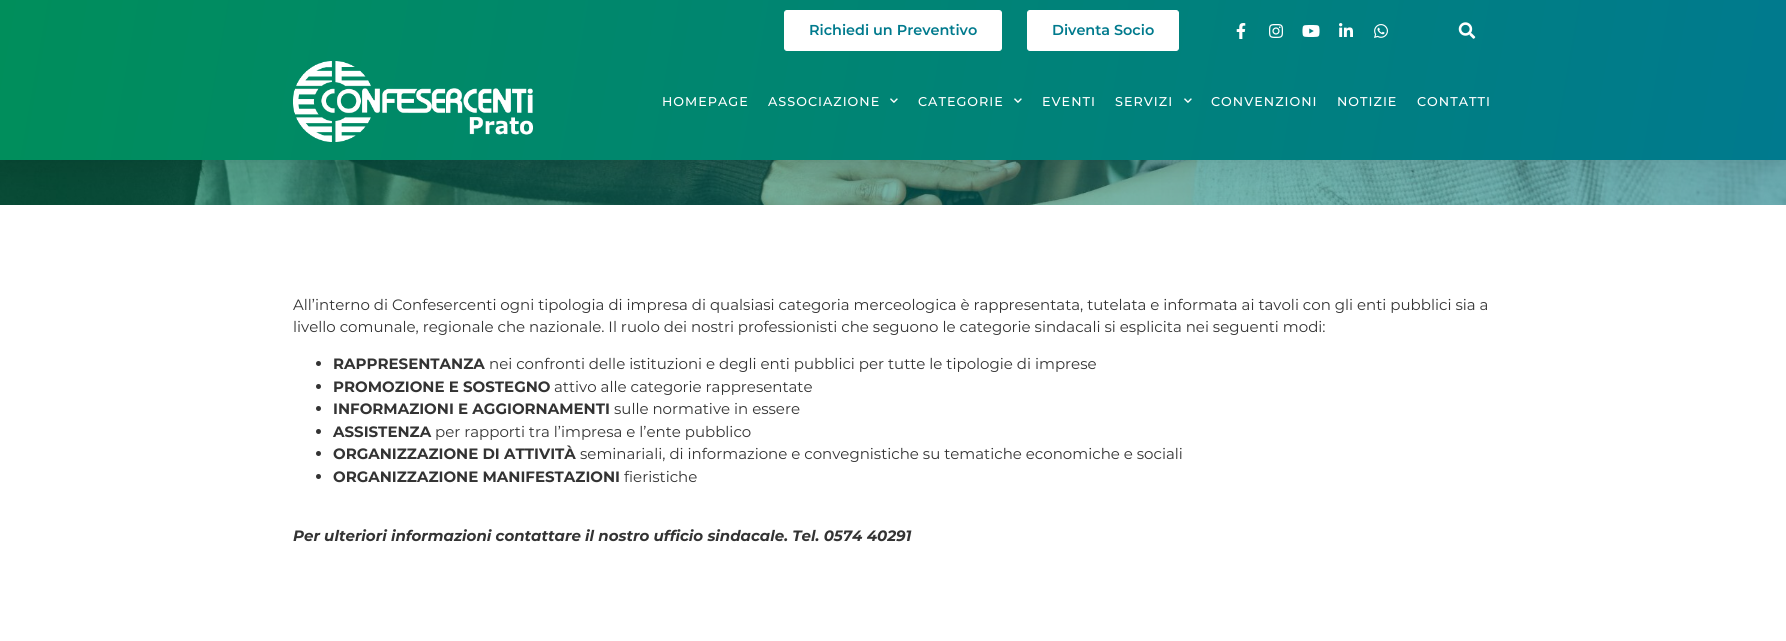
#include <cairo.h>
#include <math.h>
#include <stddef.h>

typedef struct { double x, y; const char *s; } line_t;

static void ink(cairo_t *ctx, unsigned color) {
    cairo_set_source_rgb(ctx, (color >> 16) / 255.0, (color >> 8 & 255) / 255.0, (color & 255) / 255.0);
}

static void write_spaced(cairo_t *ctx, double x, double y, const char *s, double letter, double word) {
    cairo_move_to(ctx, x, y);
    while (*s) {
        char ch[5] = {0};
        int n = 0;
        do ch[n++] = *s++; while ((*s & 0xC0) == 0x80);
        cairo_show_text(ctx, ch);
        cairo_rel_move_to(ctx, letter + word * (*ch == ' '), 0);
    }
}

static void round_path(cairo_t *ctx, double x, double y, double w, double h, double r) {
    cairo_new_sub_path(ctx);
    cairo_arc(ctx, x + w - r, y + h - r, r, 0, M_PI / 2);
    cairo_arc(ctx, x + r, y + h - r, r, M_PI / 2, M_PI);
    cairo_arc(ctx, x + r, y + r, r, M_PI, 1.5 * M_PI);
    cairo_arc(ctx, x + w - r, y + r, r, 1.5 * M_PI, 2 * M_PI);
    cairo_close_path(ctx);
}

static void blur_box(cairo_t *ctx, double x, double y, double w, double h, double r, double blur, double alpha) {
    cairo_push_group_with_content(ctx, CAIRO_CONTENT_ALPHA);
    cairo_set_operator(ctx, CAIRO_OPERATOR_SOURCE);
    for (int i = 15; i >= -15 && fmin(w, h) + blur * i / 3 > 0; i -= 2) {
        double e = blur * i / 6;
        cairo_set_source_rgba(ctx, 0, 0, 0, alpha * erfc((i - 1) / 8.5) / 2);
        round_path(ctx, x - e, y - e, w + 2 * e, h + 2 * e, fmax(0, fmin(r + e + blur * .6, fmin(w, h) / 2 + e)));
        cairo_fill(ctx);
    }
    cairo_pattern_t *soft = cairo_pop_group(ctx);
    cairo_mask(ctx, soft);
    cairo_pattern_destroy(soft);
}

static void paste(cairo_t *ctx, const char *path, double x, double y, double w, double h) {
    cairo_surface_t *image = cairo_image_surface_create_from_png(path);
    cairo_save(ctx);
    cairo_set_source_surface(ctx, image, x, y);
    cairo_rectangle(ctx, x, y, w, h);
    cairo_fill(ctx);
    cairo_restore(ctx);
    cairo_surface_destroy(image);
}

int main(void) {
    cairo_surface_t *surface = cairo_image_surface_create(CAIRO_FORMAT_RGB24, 1786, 641);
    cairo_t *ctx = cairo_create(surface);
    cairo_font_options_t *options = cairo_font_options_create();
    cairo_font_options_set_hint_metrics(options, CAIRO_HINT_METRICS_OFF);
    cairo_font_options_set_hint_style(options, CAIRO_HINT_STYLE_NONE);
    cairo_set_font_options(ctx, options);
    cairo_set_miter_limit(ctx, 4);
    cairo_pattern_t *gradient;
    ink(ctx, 0xFFFFFF);
    cairo_paint(ctx);
    paste(ctx, "media/11.png", 0, 160, 1786, 45);
    ink(ctx, 0x000000);
    blur_box(ctx, 0, 5, 1786, 160, 0, 15, 0.1);
    gradient = cairo_pattern_create_linear(13, -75, 1773, 235);
    cairo_pattern_add_color_stop_rgba(gradient, 0, 0, 0.557, 0.357, 1);
    cairo_pattern_add_color_stop_rgba(gradient, 1, 0, 0.478, 0.557, 1);
    cairo_set_source(ctx, gradient);
    cairo_pattern_destroy(gradient);
    cairo_rectangle(ctx, 0, 0, 1786, 160);
    cairo_fill(ctx);
    ink(ctx, 0xFFFFFF);
    round_path(ctx, 784.5, 10.5, 217, 40, 2.5);
    cairo_fill_preserve(ctx);
    cairo_set_line_width(ctx, 1);
    cairo_stroke(ctx);
    cairo_select_font_face(ctx, "Montserrat SemiBold", CAIRO_FONT_SLANT_NORMAL, CAIRO_FONT_WEIGHT_NORMAL);
    cairo_set_font_size(ctx, 14.4);
    ink(ctx, 0x007A8D);
    cairo_move_to(ctx, 809, 35);
    cairo_show_text(ctx, "Richiedi un Preventivo");
    ink(ctx, 0xFFFFFF);
    round_path(ctx, 1027.5, 10.5, 151, 40, 2.5);
    cairo_fill_preserve(ctx);
    cairo_stroke(ctx);
    ink(ctx, 0x007A8D);
    cairo_move_to(ctx, 1052, 35);
    cairo_show_text(ctx, "Diventa Socio");
    paste(ctx, "media/1.png", 1236, 23, 10, 16);
    paste(ctx, "media/2.png", 1269, 24, 14, 14);
    paste(ctx, "media/3.png", 1302, 25, 18, 12);
    paste(ctx, "media/4.png", 1339, 23, 14, 14);
    paste(ctx, "media/5.png", 1374, 24, 14, 14);
    paste(ctx, "media/6.png", 1458, 22, 18, 17);
    paste(ctx, "media/7.png", 293, 61, 240, 81);
    cairo_select_font_face(ctx, "Montserrat Medium", CAIRO_FONT_SLANT_NORMAL, CAIRO_FONT_WEIGHT_NORMAL);
    cairo_set_font_size(ctx, 12.75);
    ink(ctx, 0xFFFFFF);
    write_spaced(ctx, 662, 106, "HOMEPAGE", 1, 0);
    write_spaced(ctx, 768, 106, "ASSOCIAZIONE", 1, 0);
    paste(ctx, "media/8.png", 890, 98, 8, 5);
    write_spaced(ctx, 918, 106, "CATEGORIE", 1, 0);
    paste(ctx, "media/9.png", 1014, 98, 8, 5);
    write_spaced(ctx, 1042, 106, "EVENTI", 1, 0);
    write_spaced(ctx, 1115, 106, "SERVIZI", 1, 0);
    paste(ctx, "media/10.png", 1184, 98, 8, 5);
    {
        static const line_t items[] = {
            {1211, 106, "CONVENZIONI"},
            {1337, 106, "NOTIZIE"},
            {1417, 106, "CONTATTI"},
        };
        for (size_t i = 0; i < sizeof items / sizeof *items; i++) {
            write_spaced(ctx, items[i].x, items[i].y, items[i].s, 1, 0);
        }
    }
    cairo_select_font_face(ctx, "Montserrat", CAIRO_FONT_SLANT_NORMAL, CAIRO_FONT_WEIGHT_NORMAL);
    cairo_set_font_size(ctx, 15);
    ink(ctx, 0x333333);
    cairo_move_to(ctx, 293, 310);
    cairo_show_text(ctx, "All’interno di Confesercenti ogni tipologia di impresa di qualsiasi categoria merceologica è rappresentata, tutelata e informata ai tavoli con gli enti pubblici sia a");
    cairo_move_to(ctx, 293, 332);
    cairo_show_text(ctx, "livello comunale, regionale che nazionale. Il ruolo dei nostri professionisti che seguono le categorie sindacali si esplicita nei seguenti modi:");
    cairo_new_path(ctx);
    cairo_arc(ctx, 318.5, 363.5, 2.5, 0, 2 * M_PI);
    cairo_fill(ctx);
    cairo_select_font_face(ctx, "Montserrat", CAIRO_FONT_SLANT_NORMAL, CAIRO_FONT_WEIGHT_BOLD);
    cairo_move_to(ctx, 333, 369);
    cairo_show_text(ctx, "RAPPRESENTANZA");
    cairo_select_font_face(ctx, "Montserrat", CAIRO_FONT_SLANT_NORMAL, CAIRO_FONT_WEIGHT_NORMAL);
    cairo_move_to(ctx, 489, 369);
    cairo_show_text(ctx, "nei confronti delle istituzioni e degli enti pubblici per tutte le tipologie di imprese");
    cairo_new_path(ctx);
    cairo_arc(ctx, 318.5, 386.5, 2.5, 0, 2 * M_PI);
    cairo_fill(ctx);
    cairo_select_font_face(ctx, "Montserrat", CAIRO_FONT_SLANT_NORMAL, CAIRO_FONT_WEIGHT_BOLD);
    cairo_move_to(ctx, 333, 392);
    cairo_show_text(ctx, "PROMOZIONE E SOSTEGNO");
    cairo_select_font_face(ctx, "Montserrat", CAIRO_FONT_SLANT_NORMAL, CAIRO_FONT_WEIGHT_NORMAL);
    cairo_move_to(ctx, 554, 392);
    cairo_show_text(ctx, "attivo alle categorie rappresentate");
    cairo_new_path(ctx);
    cairo_arc(ctx, 318.5, 408.5, 2.5, 0, 2 * M_PI);
    cairo_fill(ctx);
    cairo_select_font_face(ctx, "Montserrat", CAIRO_FONT_SLANT_NORMAL, CAIRO_FONT_WEIGHT_BOLD);
    cairo_move_to(ctx, 333, 414);
    cairo_show_text(ctx, "INFORMAZIONI E AGGIORNAMENTI");
    cairo_select_font_face(ctx, "Montserrat", CAIRO_FONT_SLANT_NORMAL, CAIRO_FONT_WEIGHT_NORMAL);
    cairo_move_to(ctx, 614, 414);
    cairo_show_text(ctx, "sulle normative in essere");
    cairo_new_path(ctx);
    cairo_arc(ctx, 318.5, 431.5, 2.5, 0, 2 * M_PI);
    cairo_fill(ctx);
    cairo_select_font_face(ctx, "Montserrat", CAIRO_FONT_SLANT_NORMAL, CAIRO_FONT_WEIGHT_BOLD);
    cairo_move_to(ctx, 333, 437);
    cairo_show_text(ctx, "ASSISTENZA");
    cairo_select_font_face(ctx, "Montserrat", CAIRO_FONT_SLANT_NORMAL, CAIRO_FONT_WEIGHT_NORMAL);
    cairo_move_to(ctx, 435, 437);
    cairo_show_text(ctx, "per rapporti tra l’impresa e l’ente pubblico");
    cairo_new_path(ctx);
    cairo_arc(ctx, 318.5, 453.5, 2.5, 0, 2 * M_PI);
    cairo_fill(ctx);
    cairo_select_font_face(ctx, "Montserrat", CAIRO_FONT_SLANT_NORMAL, CAIRO_FONT_WEIGHT_BOLD);
    cairo_move_to(ctx, 333, 459);
    cairo_show_text(ctx, "ORGANIZZAZIONE DI ATTIVITÀ");
    cairo_select_font_face(ctx, "Montserrat", CAIRO_FONT_SLANT_NORMAL, CAIRO_FONT_WEIGHT_NORMAL);
    cairo_move_to(ctx, 580, 459);
    cairo_show_text(ctx, "seminariali, di informazione e convegnistiche su tematiche economiche e sociali");
    cairo_new_path(ctx);
    cairo_arc(ctx, 318.5, 476.5, 2.5, 0, 2 * M_PI);
    cairo_fill(ctx);
    cairo_select_font_face(ctx, "Montserrat", CAIRO_FONT_SLANT_NORMAL, CAIRO_FONT_WEIGHT_BOLD);
    cairo_move_to(ctx, 333, 482);
    cairo_show_text(ctx, "ORGANIZZAZIONE MANIFESTAZIONI");
    cairo_select_font_face(ctx, "Montserrat", CAIRO_FONT_SLANT_NORMAL, CAIRO_FONT_WEIGHT_NORMAL);
    cairo_move_to(ctx, 624, 482);
    cairo_show_text(ctx, "fieristiche");
    cairo_select_font_face(ctx, "Montserrat", CAIRO_FONT_SLANT_ITALIC, CAIRO_FONT_WEIGHT_BOLD);
    cairo_move_to(ctx, 293, 541);
    cairo_show_text(ctx, "Per ulteriori informazioni contattare il nostro ufficio sindacale. Tel. 0574 40291");
    cairo_surface_write_to_png(surface, "image.png");
    cairo_font_options_destroy(options);
    cairo_destroy(ctx);
    cairo_surface_destroy(surface);
    return 0;
}
